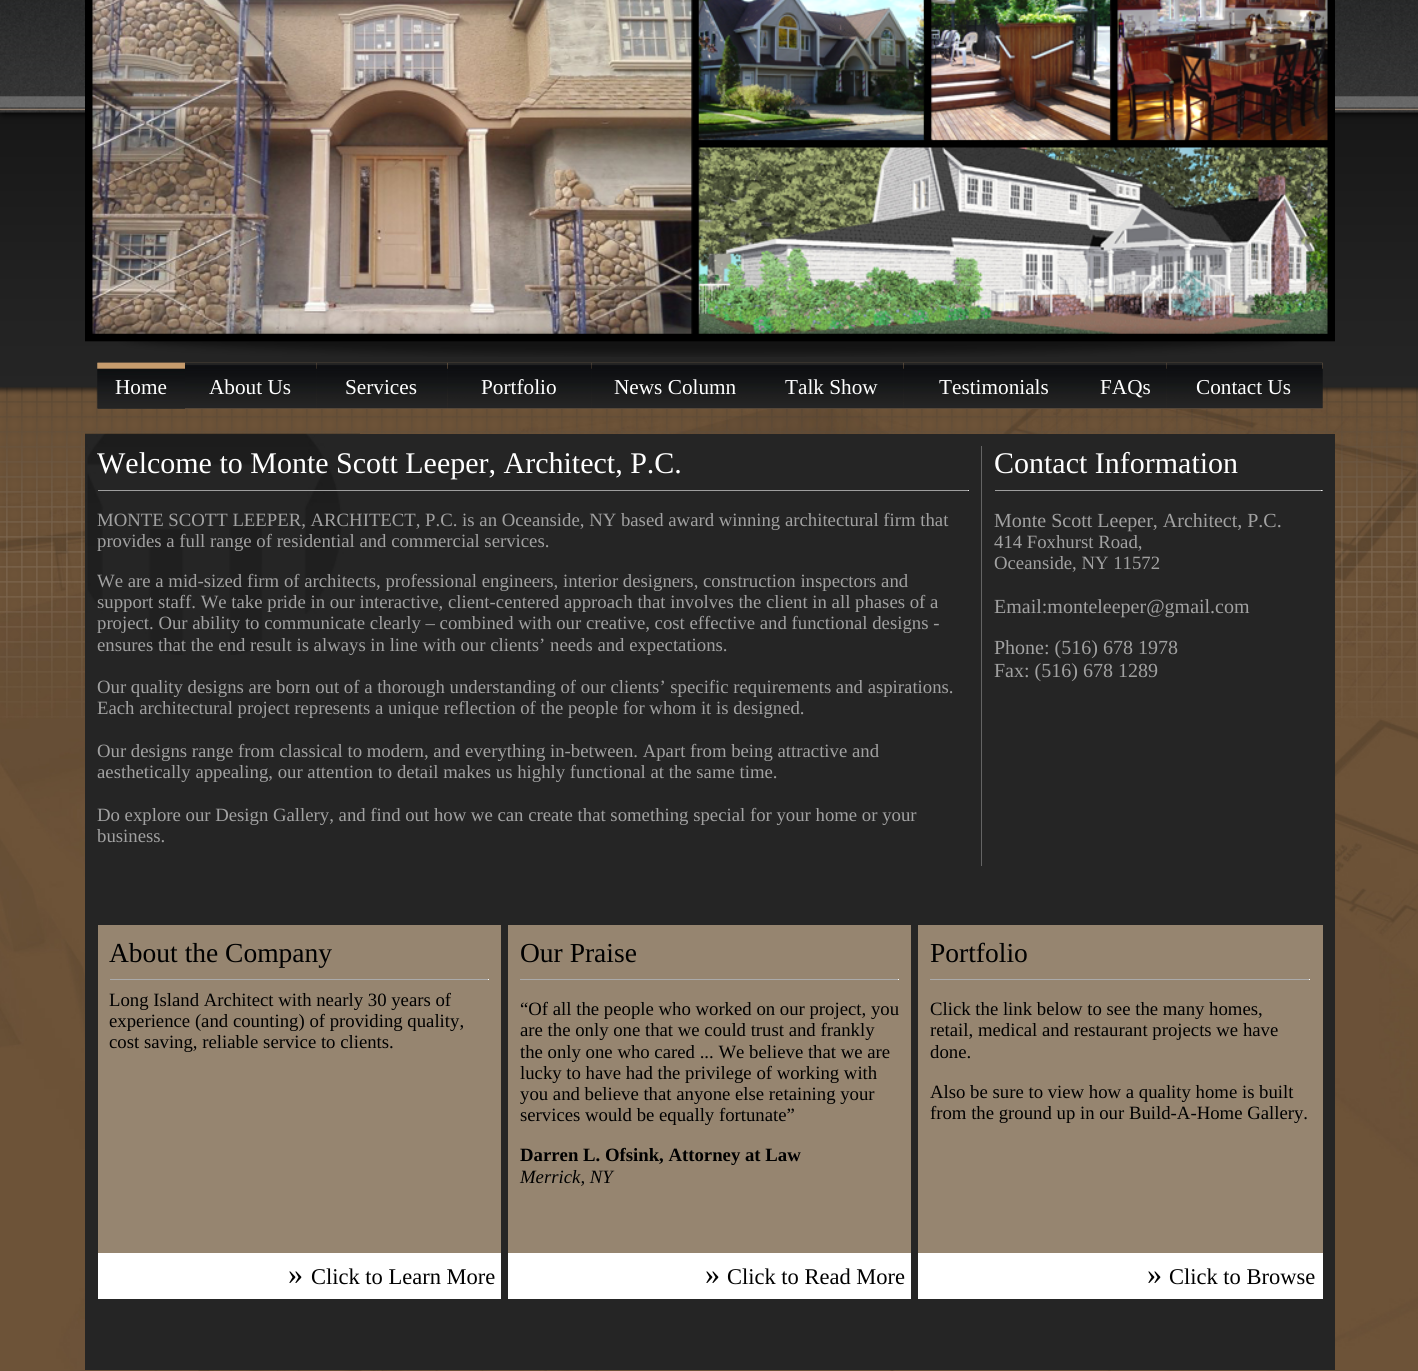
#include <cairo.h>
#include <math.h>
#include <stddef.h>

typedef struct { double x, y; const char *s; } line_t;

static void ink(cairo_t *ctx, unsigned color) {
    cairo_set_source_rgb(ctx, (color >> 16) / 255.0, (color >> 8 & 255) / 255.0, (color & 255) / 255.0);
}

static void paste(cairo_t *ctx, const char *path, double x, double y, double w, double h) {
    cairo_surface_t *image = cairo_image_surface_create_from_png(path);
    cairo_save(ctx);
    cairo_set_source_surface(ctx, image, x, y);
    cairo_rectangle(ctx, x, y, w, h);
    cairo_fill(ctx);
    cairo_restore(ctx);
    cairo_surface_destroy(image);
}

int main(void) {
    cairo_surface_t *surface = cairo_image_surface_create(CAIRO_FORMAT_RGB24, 1418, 1371);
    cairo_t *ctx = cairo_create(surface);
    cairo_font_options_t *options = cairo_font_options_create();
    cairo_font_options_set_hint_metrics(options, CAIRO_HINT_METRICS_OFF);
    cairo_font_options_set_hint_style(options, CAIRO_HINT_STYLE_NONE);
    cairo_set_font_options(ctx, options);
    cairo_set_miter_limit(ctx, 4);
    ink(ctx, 0xFFFFFF);
    cairo_paint(ctx);
    paste(ctx, "media/1.png", 0, 386, 1418, 985);
    paste(ctx, "media/2.png", 0, 0, 1418, 718);
    paste(ctx, "media/3.png", 85, 0, 1250, 357);
    paste(ctx, "media/4.png", 97, 362, 88, 47);
    paste(ctx, "media/5.png", 97, 362, 88, 47);
    cairo_select_font_face(ctx, "Liberation Serif", CAIRO_FONT_SLANT_NORMAL, CAIRO_FONT_WEIGHT_NORMAL);
    cairo_set_font_size(ctx, 21.25);
    ink(ctx, 0xFFFFFF);
    cairo_move_to(ctx, 115, 394);
    cairo_show_text(ctx, "Home");
    paste(ctx, "media/6.png", 185, 362, 132, 47);
    paste(ctx, "media/7.png", 185, 362, 132, 47);
    cairo_move_to(ctx, 209, 394);
    cairo_show_text(ctx, "About Us");
    paste(ctx, "media/8.png", 316, 362, 132, 47);
    paste(ctx, "media/9.png", 316, 362, 132, 47);
    cairo_move_to(ctx, 345, 394);
    cairo_show_text(ctx, "Services");
    paste(ctx, "media/10.png", 447, 362, 145, 47);
    paste(ctx, "media/11.png", 447, 362, 145, 47);
    cairo_move_to(ctx, 481, 394);
    cairo_show_text(ctx, "Portfolio");
    paste(ctx, "media/12.png", 591, 362, 169, 47);
    paste(ctx, "media/13.png", 591, 362, 169, 47);
    cairo_move_to(ctx, 614, 394);
    cairo_show_text(ctx, "News Column");
    paste(ctx, "media/14.png", 760, 362, 144, 47);
    paste(ctx, "media/15.png", 760, 362, 144, 47);
    cairo_move_to(ctx, 785, 394);
    cairo_show_text(ctx, "Talk Show");
    paste(ctx, "media/16.png", 903, 362, 182, 47);
    paste(ctx, "media/17.png", 903, 362, 182, 47);
    cairo_move_to(ctx, 939, 394);
    cairo_show_text(ctx, "Testimonials");
    paste(ctx, "media/18.png", 1085, 362, 82, 47);
    paste(ctx, "media/19.png", 1085, 362, 82, 47);
    cairo_move_to(ctx, 1100, 394);
    cairo_show_text(ctx, "FAQs");
    paste(ctx, "media/20.png", 1166, 362, 157, 47);
    paste(ctx, "media/21.png", 1166, 362, 157, 47);
    cairo_move_to(ctx, 1196, 394);
    cairo_show_text(ctx, "Contact Us");
    ink(ctx, 0x252525);
    cairo_rectangle(ctx, 85, 434, 1250, 936);
    cairo_fill(ctx);
    paste(ctx, "media/22.png", 85, 433, 275, 222);
    cairo_set_font_size(ctx, 30);
    ink(ctx, 0xFFFFFF);
    cairo_move_to(ctx, 97, 473);
    cairo_show_text(ctx, "Welcome to Monte Scott Leeper, Architect, P.C.");
    ink(ctx, 0x9F9F9F);
    cairo_rectangle(ctx, 98, 490, 871, 1);
    cairo_fill(ctx);
    ink(ctx, 0xEEEEEE);
    cairo_rectangle(ctx, 968, 490, 1, 1);
    cairo_fill(ctx);
    cairo_set_font_size(ctx, 18.75);
    ink(ctx, 0xA1A1A1);
    {
        static const line_t items[] = {
            {97, 526, "MONTE SCOTT LEEPER, ARCHITECT, P.C. is an Oceanside, NY based award winning architectural firm that"},
            {97, 547, "provides a full range of residential and commercial services."},
            {97, 587, "We are a mid-sized firm of architects, professional engineers, interior designers, construction inspectors and"},
            {97, 608, "support staff. We take pride in our interactive, client-centered approach that involves the client in all phases of a"},
            {97, 629, "project. Our ability to communicate clearly – combined with our creative, cost effective and functional designs -"},
            {97, 651, "ensures that the end result is always in line with our clients’ needs and expectations."},
            {97, 693, "Our quality designs are born out of a thorough understanding of our clients’ specific requirements and aspirations."},
            {97, 714, "Each architectural project represents a unique reflection of the people for whom it is designed."},
            {97, 757, "Our designs range from classical to modern, and everything in-between. Apart from being attractive and"},
            {97, 778, "aesthetically appealing, our attention to detail makes us highly functional at the same time."},
            {97, 821, "Do explore our Design Gallery, and find out how we can create that something special for your home or your"},
            {97, 842, "business."},
        };
        for (size_t i = 0; i < sizeof items / sizeof *items; i++) {
            cairo_move_to(ctx, items[i].x, items[i].y);
            cairo_show_text(ctx, items[i].s);
        }
    }
    ink(ctx, 0x646464);
    cairo_rectangle(ctx, 981, 446, 1, 420);
    cairo_fill(ctx);
    cairo_set_font_size(ctx, 30);
    ink(ctx, 0xFFFFFF);
    cairo_move_to(ctx, 994, 473);
    cairo_show_text(ctx, "Contact Information");
    ink(ctx, 0x9F9F9F);
    cairo_rectangle(ctx, 995, 490, 328, 1);
    cairo_fill(ctx);
    ink(ctx, 0xEEEEEE);
    cairo_rectangle(ctx, 1321, 490, 1, 1);
    cairo_fill(ctx);
    cairo_set_font_size(ctx, 20);
    ink(ctx, 0xA1A1A1);
    cairo_move_to(ctx, 994, 527);
    cairo_show_text(ctx, "Monte Scott Leeper, Architect, P.C.");
    cairo_set_font_size(ctx, 18.75);
    cairo_move_to(ctx, 994, 548);
    cairo_show_text(ctx, "414 Foxhurst Road,");
    cairo_move_to(ctx, 994, 569);
    cairo_show_text(ctx, "Oceanside, NY 11572");
    cairo_set_font_size(ctx, 20);
    {
        static const line_t items[] = {
            {994, 613, "Email:monteleeper@gmail.com"},
            {994, 654, "Phone: (516) 678 1978"},
            {994, 677, "Fax: (516) 678 1289"},
        };
        for (size_t i = 0; i < sizeof items / sizeof *items; i++) {
            cairo_move_to(ctx, items[i].x, items[i].y);
            cairo_show_text(ctx, items[i].s);
        }
    }
    ink(ctx, 0x968570);
    cairo_rectangle(ctx, 98, 925, 403, 328);
    cairo_fill(ctx);
    cairo_set_font_size(ctx, 27.5);
    ink(ctx, 0x000000);
    cairo_move_to(ctx, 109, 962);
    cairo_show_text(ctx, "About the Company");
    ink(ctx, 0xAAAAAA);
    cairo_rectangle(ctx, 110, 979, 379, 1);
    cairo_fill(ctx);
    ink(ctx, 0xFFFFFF);
    cairo_rectangle(ctx, 488, 979, 1, 1);
    cairo_fill(ctx);
    cairo_set_font_size(ctx, 18.75);
    ink(ctx, 0x000000);
    {
        static const line_t items[] = {
            {109, 1006, "Long Island Architect with nearly 30 years of"},
            {109, 1027, "experience (and counting) of providing quality,"},
            {109, 1048, "cost saving, reliable service to clients."},
        };
        for (size_t i = 0; i < sizeof items / sizeof *items; i++) {
            cairo_move_to(ctx, items[i].x, items[i].y);
            cairo_show_text(ctx, items[i].s);
        }
    }
    ink(ctx, 0xFFFFFF);
    cairo_rectangle(ctx, 98, 1253, 403, 46);
    cairo_fill(ctx);
    cairo_set_font_size(ctx, 30);
    ink(ctx, 0x000000);
    cairo_move_to(ctx, 288, 1284);
    cairo_show_text(ctx, "»");
    cairo_set_font_size(ctx, 22.5);
    cairo_move_to(ctx, 311, 1284);
    cairo_show_text(ctx, "Click to Learn More");
    ink(ctx, 0x968570);
    cairo_rectangle(ctx, 508, 925, 403, 328);
    cairo_fill(ctx);
    cairo_set_font_size(ctx, 27.5);
    ink(ctx, 0x000000);
    cairo_move_to(ctx, 520, 962);
    cairo_show_text(ctx, "Our Praise");
    ink(ctx, 0xAAAAAA);
    cairo_rectangle(ctx, 520, 979, 379, 1);
    cairo_fill(ctx);
    ink(ctx, 0xFFFFFF);
    cairo_rectangle(ctx, 898, 979, 1, 1);
    cairo_fill(ctx);
    cairo_set_font_size(ctx, 18.75);
    ink(ctx, 0x000000);
    {
        static const line_t items[] = {
            {520, 1015, "“Of all the people who worked on our project, you"},
            {520, 1036, "are the only one that we could trust and frankly"},
            {520, 1058, "the only one who cared ... We believe that we are"},
            {520, 1079, "lucky to have had the privilege of working with"},
            {520, 1100, "you and believe that anyone else retaining your"},
            {520, 1121, "services would be equally fortunate”"},
        };
        for (size_t i = 0; i < sizeof items / sizeof *items; i++) {
            cairo_move_to(ctx, items[i].x, items[i].y);
            cairo_show_text(ctx, items[i].s);
        }
    }
    cairo_select_font_face(ctx, "Liberation Serif", CAIRO_FONT_SLANT_NORMAL, CAIRO_FONT_WEIGHT_BOLD);
    cairo_move_to(ctx, 520, 1161);
    cairo_show_text(ctx, "Darren L. Ofsink, Attorney at Law");
    cairo_select_font_face(ctx, "Liberation Serif", CAIRO_FONT_SLANT_ITALIC, CAIRO_FONT_WEIGHT_NORMAL);
    cairo_move_to(ctx, 520, 1183);
    cairo_show_text(ctx, "Merrick, NY");
    ink(ctx, 0xFFFFFF);
    cairo_rectangle(ctx, 508, 1253, 403, 46);
    cairo_fill(ctx);
    cairo_select_font_face(ctx, "Liberation Serif", CAIRO_FONT_SLANT_NORMAL, CAIRO_FONT_WEIGHT_NORMAL);
    cairo_set_font_size(ctx, 30);
    ink(ctx, 0x000000);
    cairo_move_to(ctx, 705, 1284);
    cairo_show_text(ctx, "»");
    cairo_set_font_size(ctx, 22.5);
    cairo_move_to(ctx, 727, 1284);
    cairo_show_text(ctx, "Click to Read More");
    ink(ctx, 0x968570);
    cairo_rectangle(ctx, 918, 925, 405, 328);
    cairo_fill(ctx);
    cairo_set_font_size(ctx, 27.5);
    ink(ctx, 0x000000);
    cairo_move_to(ctx, 930, 962);
    cairo_show_text(ctx, "Portfolio");
    ink(ctx, 0xAAAAAA);
    cairo_rectangle(ctx, 930, 979, 380, 1);
    cairo_fill(ctx);
    ink(ctx, 0xFFFFFF);
    cairo_rectangle(ctx, 1309, 979, 1, 1);
    cairo_fill(ctx);
    cairo_set_font_size(ctx, 18.75);
    ink(ctx, 0x000000);
    {
        static const line_t items[] = {
            {930, 1015, "Click the link below to see the many homes,"},
            {930, 1036, "retail, medical and restaurant projects we have"},
            {930, 1058, "done."},
            {930, 1098, "Also be sure to view how a quality home is built"},
            {930, 1119, "from the ground up in our Build-A-Home Gallery."},
        };
        for (size_t i = 0; i < sizeof items / sizeof *items; i++) {
            cairo_move_to(ctx, items[i].x, items[i].y);
            cairo_show_text(ctx, items[i].s);
        }
    }
    ink(ctx, 0xFFFFFF);
    cairo_rectangle(ctx, 918, 1253, 405, 46);
    cairo_fill(ctx);
    cairo_set_font_size(ctx, 30);
    ink(ctx, 0x000000);
    cairo_move_to(ctx, 1147, 1284);
    cairo_show_text(ctx, "»");
    cairo_set_font_size(ctx, 22.5);
    cairo_move_to(ctx, 1169, 1284);
    cairo_show_text(ctx, "Click to Browse");
    cairo_surface_write_to_png(surface, "image.png");
    cairo_font_options_destroy(options);
    cairo_destroy(ctx);
    cairo_surface_destroy(surface);
    return 0;
}
